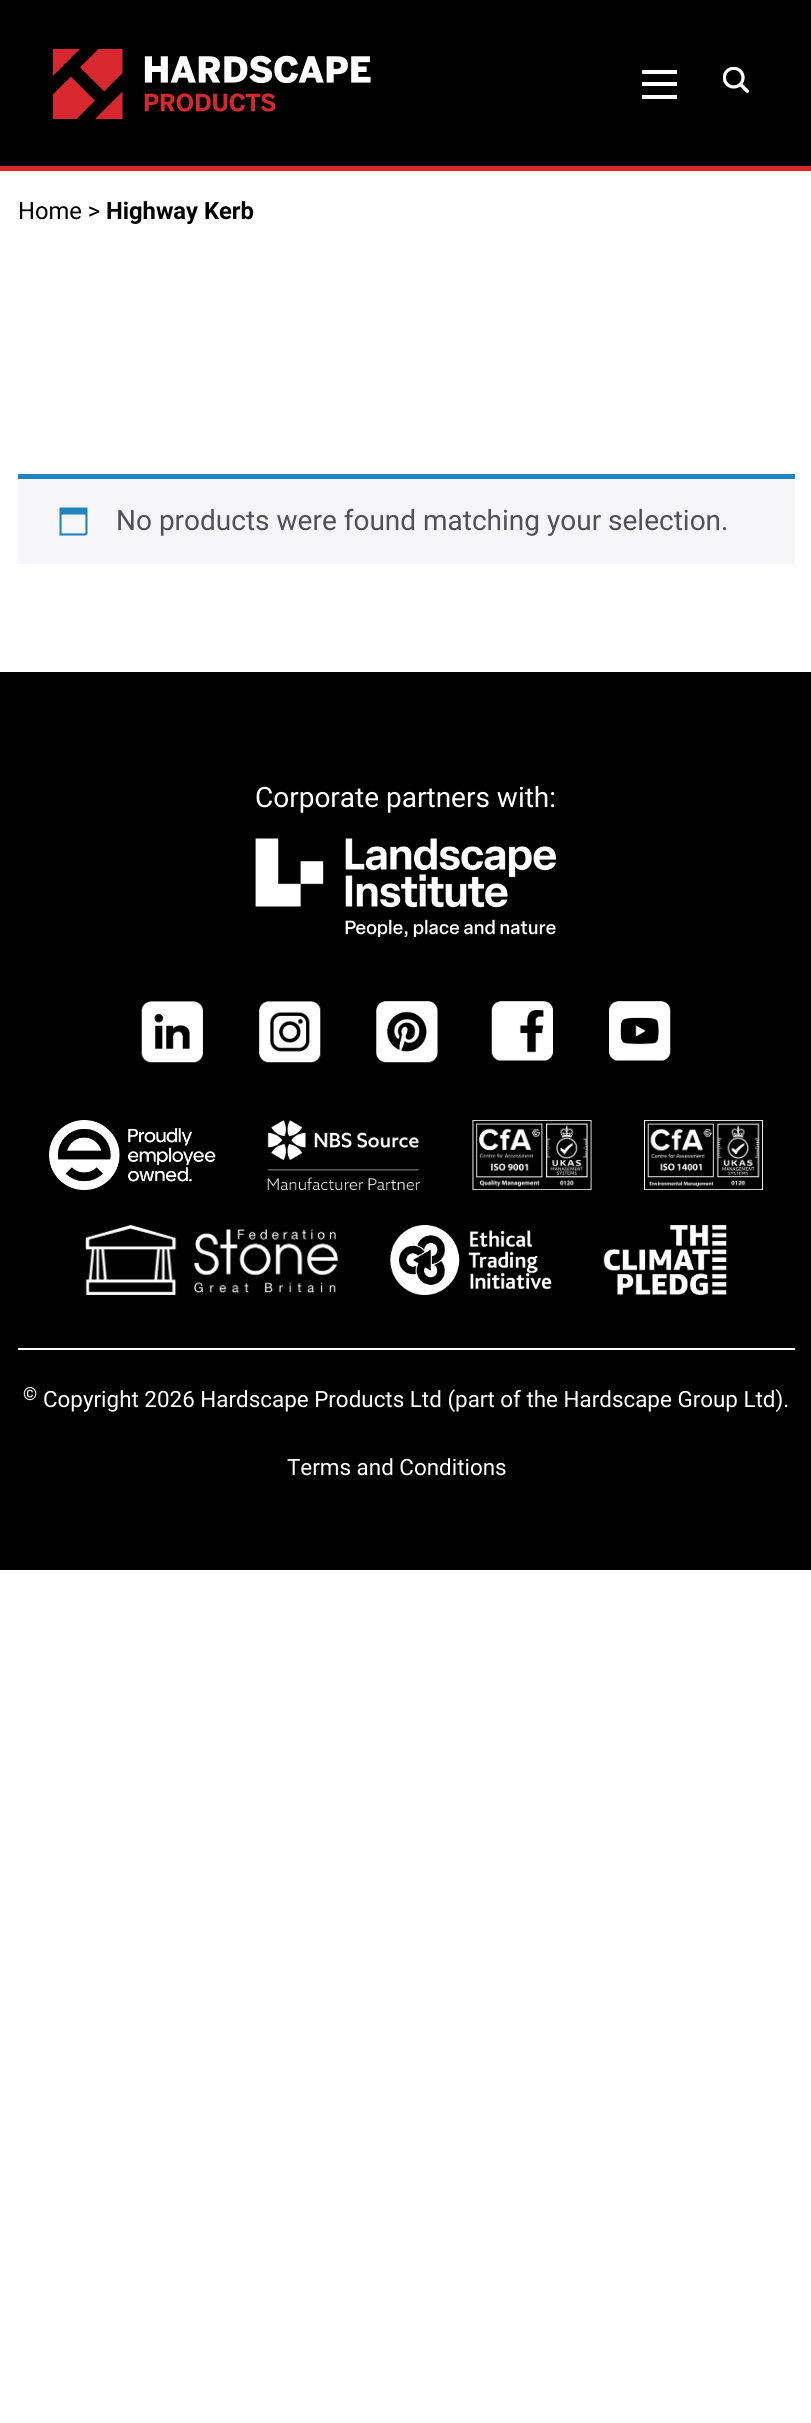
#include <cairo.h>
#include <math.h>
#include <stddef.h>

typedef struct { double x, y, w, h; unsigned color; } box_t;

static void ink(cairo_t *ctx, unsigned color) {
    cairo_set_source_rgb(ctx, (color >> 16) / 255.0, (color >> 8 & 255) / 255.0, (color & 255) / 255.0);
}

static void paste(cairo_t *ctx, const char *path, double x, double y, double w, double h) {
    cairo_surface_t *image = cairo_image_surface_create_from_png(path);
    cairo_save(ctx);
    cairo_set_source_surface(ctx, image, x, y);
    cairo_rectangle(ctx, x, y, w, h);
    cairo_fill(ctx);
    cairo_restore(ctx);
    cairo_surface_destroy(image);
}

int main(void) {
    cairo_surface_t *surface = cairo_image_surface_create(CAIRO_FORMAT_RGB24, 811, 2423);
    cairo_t *ctx = cairo_create(surface);
    cairo_font_options_t *options = cairo_font_options_create();
    cairo_font_options_set_hint_metrics(options, CAIRO_HINT_METRICS_OFF);
    cairo_font_options_set_hint_style(options, CAIRO_HINT_STYLE_NONE);
    cairo_set_font_options(ctx, options);
    cairo_set_miter_limit(ctx, 4);
    ink(ctx, 0xFFFFFF);
    cairo_paint(ctx);
    ink(ctx, 0x000000);
    cairo_rectangle(ctx, 0, 0, 811, 166);
    cairo_fill(ctx);
    paste(ctx, "media/1.png", 53, 49, 318, 70);
    {
        static const box_t items[] = {
            {642, 82, 35, 4, 0xFFFFFF},
            {642, 70, 35, 4, 0xFFFFFF},
            {642, 95, 35, 4, 0xFFFFFF},
        };
        for (size_t i = 0; i < sizeof items / sizeof *items; i++) {
            ink(ctx, items[i].color);
            cairo_rectangle(ctx, items[i].x, items[i].y, items[i].w, items[i].h);
            cairo_fill(ctx);
        }
    }
    paste(ctx, "media/2.png", 723, 67, 26, 26);
    ink(ctx, 0xD7282F);
    cairo_rectangle(ctx, 0, 166, 811, 5);
    cairo_fill(ctx);
    cairo_select_font_face(ctx, "Roboto", CAIRO_FONT_SLANT_NORMAL, CAIRO_FONT_WEIGHT_NORMAL);
    cairo_set_font_size(ctx, 23.75);
    ink(ctx, 0x000000);
    cairo_move_to(ctx, 18, 219);
    cairo_show_text(ctx, "Home >");
    cairo_select_font_face(ctx, "Roboto", CAIRO_FONT_SLANT_NORMAL, CAIRO_FONT_WEIGHT_BOLD);
    cairo_move_to(ctx, 106, 219);
    cairo_show_text(ctx, "Highway Kerb");
    ink(ctx, 0xF6F5F8);
    cairo_rectangle(ctx, 18, 479, 777, 85);
    cairo_fill(ctx);
    ink(ctx, 0x1E85BE);
    cairo_rectangle(ctx, 18, 474, 777, 5);
    cairo_fill(ctx);
    paste(ctx, "media/3.png", 59, 507, 29, 29);
    cairo_select_font_face(ctx, "Roboto", CAIRO_FONT_SLANT_NORMAL, CAIRO_FONT_WEIGHT_NORMAL);
    cairo_set_font_size(ctx, 28);
    ink(ctx, 0x515151);
    cairo_move_to(ctx, 116, 530);
    cairo_show_text(ctx, "No products were found matching your selection.");
    ink(ctx, 0x000000);
    cairo_rectangle(ctx, 0, 672, 811, 898);
    cairo_fill(ctx);
    ink(ctx, 0xFFFFFF);
    cairo_move_to(ctx, 255, 807);
    cairo_show_text(ctx, "Corporate partners with:");
    paste(ctx, "media/4.png", 255, 838, 301, 99);
    paste(ctx, "media/5.png", 141, 1001, 62, 62);
    paste(ctx, "media/6.png", 259, 1001, 62, 62);
    paste(ctx, "media/7.png", 376, 1001, 62, 62);
    paste(ctx, "media/8.png", 491, 1001, 62, 60);
    paste(ctx, "media/9.png", 609, 1001, 62, 60);
    cairo_rectangle(ctx, 18, 1348, 777, 2);
    cairo_fill(ctx);
    paste(ctx, "media/10.png", 49, 1120, 167, 70);
    paste(ctx, "media/11.png", 267, 1120, 153, 70);
    paste(ctx, "media/12.png", 472, 1120, 120, 70);
    paste(ctx, "media/13.png", 644, 1120, 119, 70);
    paste(ctx, "media/14.png", 85, 1225, 253, 70);
    paste(ctx, "media/15.png", 390, 1225, 162, 70);
    paste(ctx, "media/16.png", 603, 1225, 124, 70);
    cairo_set_font_size(ctx, 18);
    cairo_move_to(ctx, 23, 1400);
    cairo_show_text(ctx, "©");
    cairo_set_font_size(ctx, 22.4);
    cairo_move_to(ctx, 43, 1407);
    cairo_show_text(ctx, "Copyright 2026 Hardscape Products Ltd (part of the Hardscape Group Ltd).");
    cairo_move_to(ctx, 287, 1475);
    cairo_show_text(ctx, "Terms and Conditions");
    cairo_surface_write_to_png(surface, "image.png");
    cairo_font_options_destroy(options);
    cairo_destroy(ctx);
    cairo_surface_destroy(surface);
    return 0;
}
